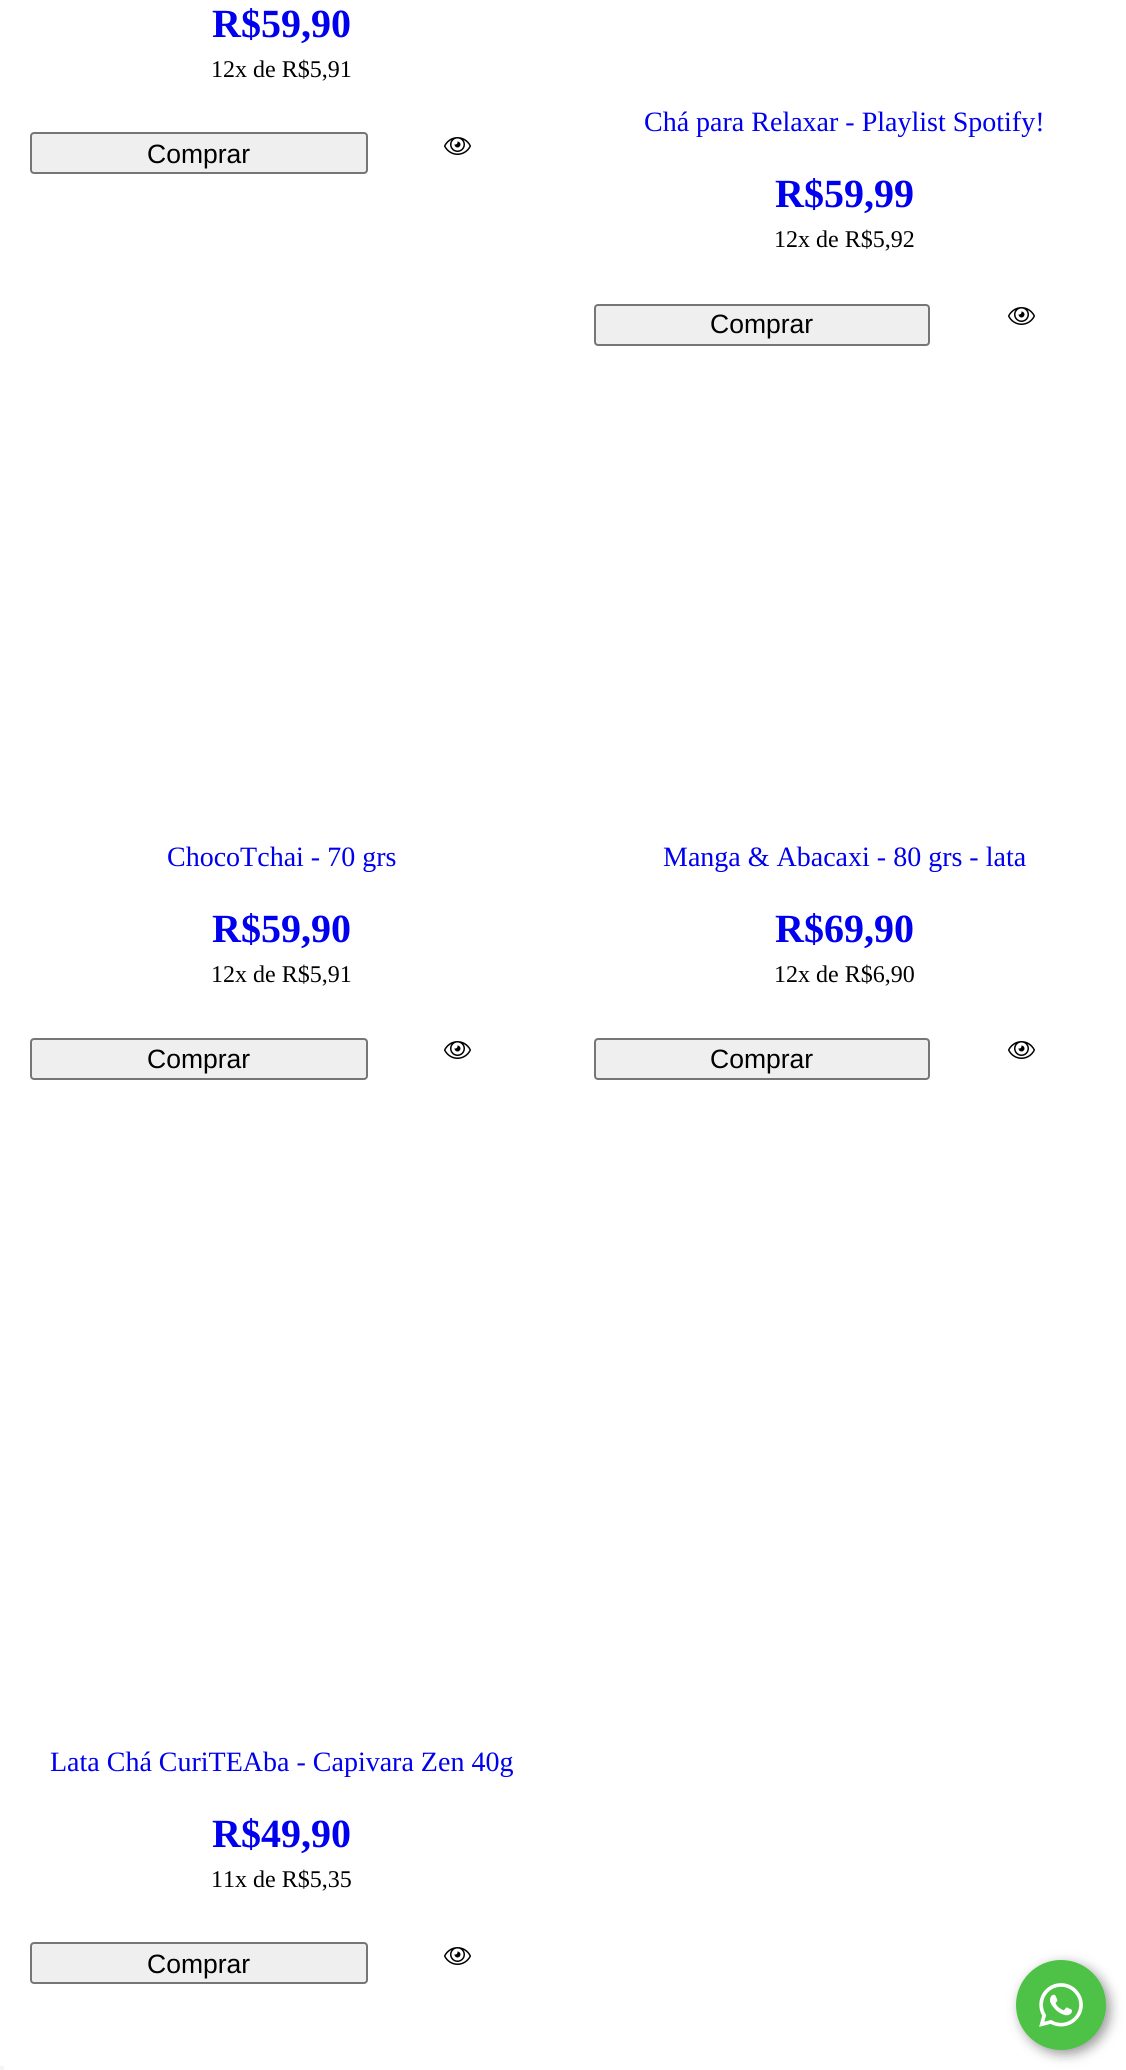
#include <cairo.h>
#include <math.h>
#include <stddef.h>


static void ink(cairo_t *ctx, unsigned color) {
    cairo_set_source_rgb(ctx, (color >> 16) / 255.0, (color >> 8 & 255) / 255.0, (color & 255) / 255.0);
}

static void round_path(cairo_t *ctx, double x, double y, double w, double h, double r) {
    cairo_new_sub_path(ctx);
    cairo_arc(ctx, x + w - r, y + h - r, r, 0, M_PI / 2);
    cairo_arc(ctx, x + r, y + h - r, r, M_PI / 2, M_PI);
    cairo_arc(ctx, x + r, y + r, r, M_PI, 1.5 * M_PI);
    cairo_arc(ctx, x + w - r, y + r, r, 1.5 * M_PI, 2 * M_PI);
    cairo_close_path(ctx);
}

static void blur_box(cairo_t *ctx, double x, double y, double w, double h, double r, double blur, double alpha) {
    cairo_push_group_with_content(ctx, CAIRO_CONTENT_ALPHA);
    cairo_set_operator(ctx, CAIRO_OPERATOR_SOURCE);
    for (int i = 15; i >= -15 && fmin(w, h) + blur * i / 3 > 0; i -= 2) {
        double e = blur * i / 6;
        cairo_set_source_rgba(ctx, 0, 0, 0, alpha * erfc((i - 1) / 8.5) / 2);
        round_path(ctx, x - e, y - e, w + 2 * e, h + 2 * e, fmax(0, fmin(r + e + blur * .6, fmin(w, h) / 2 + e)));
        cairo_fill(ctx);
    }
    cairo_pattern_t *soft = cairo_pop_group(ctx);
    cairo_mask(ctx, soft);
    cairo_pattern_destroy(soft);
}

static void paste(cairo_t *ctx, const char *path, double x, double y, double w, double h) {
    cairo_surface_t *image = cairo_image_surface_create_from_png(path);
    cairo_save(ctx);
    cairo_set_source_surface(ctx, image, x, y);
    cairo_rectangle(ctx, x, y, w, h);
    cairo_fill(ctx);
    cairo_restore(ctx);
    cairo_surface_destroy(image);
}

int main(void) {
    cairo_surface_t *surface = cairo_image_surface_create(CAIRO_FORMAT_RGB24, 1126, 2070);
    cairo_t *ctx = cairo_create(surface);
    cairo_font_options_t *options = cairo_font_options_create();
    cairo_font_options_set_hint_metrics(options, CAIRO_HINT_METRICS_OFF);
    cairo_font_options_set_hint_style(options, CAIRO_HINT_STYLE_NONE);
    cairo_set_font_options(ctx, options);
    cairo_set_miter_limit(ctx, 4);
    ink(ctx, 0xFFFFFF);
    cairo_paint(ctx);
    cairo_select_font_face(ctx, "Liberation Serif", CAIRO_FONT_SLANT_NORMAL, CAIRO_FONT_WEIGHT_BOLD);
    cairo_set_font_size(ctx, 40);
    ink(ctx, 0x0000EE);
    cairo_move_to(ctx, 212, 37);
    cairo_show_text(ctx, "R$59,90");
    cairo_select_font_face(ctx, "Liberation Serif", CAIRO_FONT_SLANT_NORMAL, CAIRO_FONT_WEIGHT_NORMAL);
    cairo_set_font_size(ctx, 24);
    ink(ctx, 0x000000);
    cairo_move_to(ctx, 211, 77);
    cairo_show_text(ctx, "12x de R$5,91");
    ink(ctx, 0xEFEFEF);
    round_path(ctx, 31, 133, 336, 40, 3);
    cairo_fill_preserve(ctx);
    ink(ctx, 0x767676);
    cairo_stroke(ctx);
    cairo_select_font_face(ctx, "Liberation Sans", CAIRO_FONT_SLANT_NORMAL, CAIRO_FONT_WEIGHT_NORMAL);
    cairo_set_font_size(ctx, 26.5);
    ink(ctx, 0x000000);
    cairo_move_to(ctx, 147, 163);
    cairo_show_text(ctx, "Comprar");
    paste(ctx, "media/1.png", 444, 137, 27, 18);
    cairo_select_font_face(ctx, "Liberation Serif", CAIRO_FONT_SLANT_NORMAL, CAIRO_FONT_WEIGHT_NORMAL);
    cairo_set_font_size(ctx, 28);
    ink(ctx, 0x0000EE);
    cairo_move_to(ctx, 644, 131);
    cairo_show_text(ctx, "Chá para Relaxar - Playlist Spotify!");
    cairo_select_font_face(ctx, "Liberation Serif", CAIRO_FONT_SLANT_NORMAL, CAIRO_FONT_WEIGHT_BOLD);
    cairo_set_font_size(ctx, 40);
    cairo_move_to(ctx, 775, 207);
    cairo_show_text(ctx, "R$59,99");
    cairo_select_font_face(ctx, "Liberation Serif", CAIRO_FONT_SLANT_NORMAL, CAIRO_FONT_WEIGHT_NORMAL);
    cairo_set_font_size(ctx, 24);
    ink(ctx, 0x000000);
    cairo_move_to(ctx, 774, 247);
    cairo_show_text(ctx, "12x de R$5,92");
    ink(ctx, 0xEFEFEF);
    round_path(ctx, 595, 305, 334, 40, 3);
    cairo_fill_preserve(ctx);
    ink(ctx, 0x767676);
    cairo_stroke(ctx);
    cairo_select_font_face(ctx, "Liberation Sans", CAIRO_FONT_SLANT_NORMAL, CAIRO_FONT_WEIGHT_NORMAL);
    cairo_set_font_size(ctx, 26.5);
    ink(ctx, 0x000000);
    cairo_move_to(ctx, 710, 333);
    cairo_show_text(ctx, "Comprar");
    paste(ctx, "media/1.png", 1008, 307, 27, 18);
    cairo_select_font_face(ctx, "Liberation Serif", CAIRO_FONT_SLANT_NORMAL, CAIRO_FONT_WEIGHT_NORMAL);
    cairo_set_font_size(ctx, 28);
    ink(ctx, 0x0000EE);
    cairo_move_to(ctx, 167, 866);
    cairo_show_text(ctx, "ChocoTchai - 70 grs");
    cairo_select_font_face(ctx, "Liberation Serif", CAIRO_FONT_SLANT_NORMAL, CAIRO_FONT_WEIGHT_BOLD);
    cairo_set_font_size(ctx, 40);
    cairo_move_to(ctx, 212, 942);
    cairo_show_text(ctx, "R$59,90");
    cairo_select_font_face(ctx, "Liberation Serif", CAIRO_FONT_SLANT_NORMAL, CAIRO_FONT_WEIGHT_NORMAL);
    cairo_set_font_size(ctx, 24);
    ink(ctx, 0x000000);
    cairo_move_to(ctx, 211, 982);
    cairo_show_text(ctx, "12x de R$5,91");
    ink(ctx, 0xEFEFEF);
    round_path(ctx, 31, 1039, 336, 40, 3);
    cairo_fill_preserve(ctx);
    ink(ctx, 0x767676);
    cairo_stroke(ctx);
    cairo_select_font_face(ctx, "Liberation Sans", CAIRO_FONT_SLANT_NORMAL, CAIRO_FONT_WEIGHT_NORMAL);
    cairo_set_font_size(ctx, 26.5);
    ink(ctx, 0x000000);
    cairo_move_to(ctx, 147, 1068);
    cairo_show_text(ctx, "Comprar");
    paste(ctx, "media/1.png", 444, 1041, 27, 18);
    cairo_select_font_face(ctx, "Liberation Serif", CAIRO_FONT_SLANT_NORMAL, CAIRO_FONT_WEIGHT_NORMAL);
    cairo_set_font_size(ctx, 28);
    ink(ctx, 0x0000EE);
    cairo_move_to(ctx, 663, 866);
    cairo_show_text(ctx, "Manga & Abacaxi - 80 grs - lata");
    cairo_select_font_face(ctx, "Liberation Serif", CAIRO_FONT_SLANT_NORMAL, CAIRO_FONT_WEIGHT_BOLD);
    cairo_set_font_size(ctx, 40);
    cairo_move_to(ctx, 775, 942);
    cairo_show_text(ctx, "R$69,90");
    cairo_select_font_face(ctx, "Liberation Serif", CAIRO_FONT_SLANT_NORMAL, CAIRO_FONT_WEIGHT_NORMAL);
    cairo_set_font_size(ctx, 24);
    ink(ctx, 0x000000);
    cairo_move_to(ctx, 774, 982);
    cairo_show_text(ctx, "12x de R$6,90");
    ink(ctx, 0xEFEFEF);
    round_path(ctx, 595, 1039, 334, 40, 3);
    cairo_fill_preserve(ctx);
    ink(ctx, 0x767676);
    cairo_stroke(ctx);
    cairo_select_font_face(ctx, "Liberation Sans", CAIRO_FONT_SLANT_NORMAL, CAIRO_FONT_WEIGHT_NORMAL);
    cairo_set_font_size(ctx, 26.5);
    ink(ctx, 0x000000);
    cairo_move_to(ctx, 710, 1068);
    cairo_show_text(ctx, "Comprar");
    paste(ctx, "media/1.png", 1008, 1041, 27, 18);
    cairo_select_font_face(ctx, "Liberation Serif", CAIRO_FONT_SLANT_NORMAL, CAIRO_FONT_WEIGHT_NORMAL);
    cairo_set_font_size(ctx, 28);
    ink(ctx, 0x0000EE);
    cairo_move_to(ctx, 50, 1771);
    cairo_show_text(ctx, "Lata Chá CuriTEAba - Capivara Zen 40g");
    cairo_select_font_face(ctx, "Liberation Serif", CAIRO_FONT_SLANT_NORMAL, CAIRO_FONT_WEIGHT_BOLD);
    cairo_set_font_size(ctx, 40);
    cairo_move_to(ctx, 212, 1847);
    cairo_show_text(ctx, "R$49,90");
    cairo_select_font_face(ctx, "Liberation Serif", CAIRO_FONT_SLANT_NORMAL, CAIRO_FONT_WEIGHT_NORMAL);
    cairo_set_font_size(ctx, 24);
    ink(ctx, 0x000000);
    cairo_move_to(ctx, 211, 1887);
    cairo_show_text(ctx, "11x de R$5,35");
    ink(ctx, 0xEFEFEF);
    round_path(ctx, 31, 1943, 336, 40, 3);
    cairo_fill_preserve(ctx);
    ink(ctx, 0x767676);
    cairo_stroke(ctx);
    cairo_select_font_face(ctx, "Liberation Sans", CAIRO_FONT_SLANT_NORMAL, CAIRO_FONT_WEIGHT_NORMAL);
    cairo_set_font_size(ctx, 26.5);
    ink(ctx, 0x000000);
    cairo_move_to(ctx, 147, 1973);
    cairo_show_text(ctx, "Comprar");
    paste(ctx, "media/1.png", 444, 1947, 27, 18);
    ink(ctx, 0xF5F5F5);
    cairo_rectangle(ctx, 0, 2066, 4, 4);
    cairo_fill(ctx);
    ink(ctx, 0x000000);
    blur_box(ctx, 1020, 1964, 90, 90, 45, 6, 0.4);
    ink(ctx, 0x4DC247);
    cairo_arc(ctx, 1061, 2005, 45, 0, 2 * M_PI);
    cairo_fill(ctx);
    paste(ctx, "media/2.png", 1039, 1983, 44, 44);
    cairo_surface_write_to_png(surface, "image.png");
    cairo_font_options_destroy(options);
    cairo_destroy(ctx);
    cairo_surface_destroy(surface);
    return 0;
}
